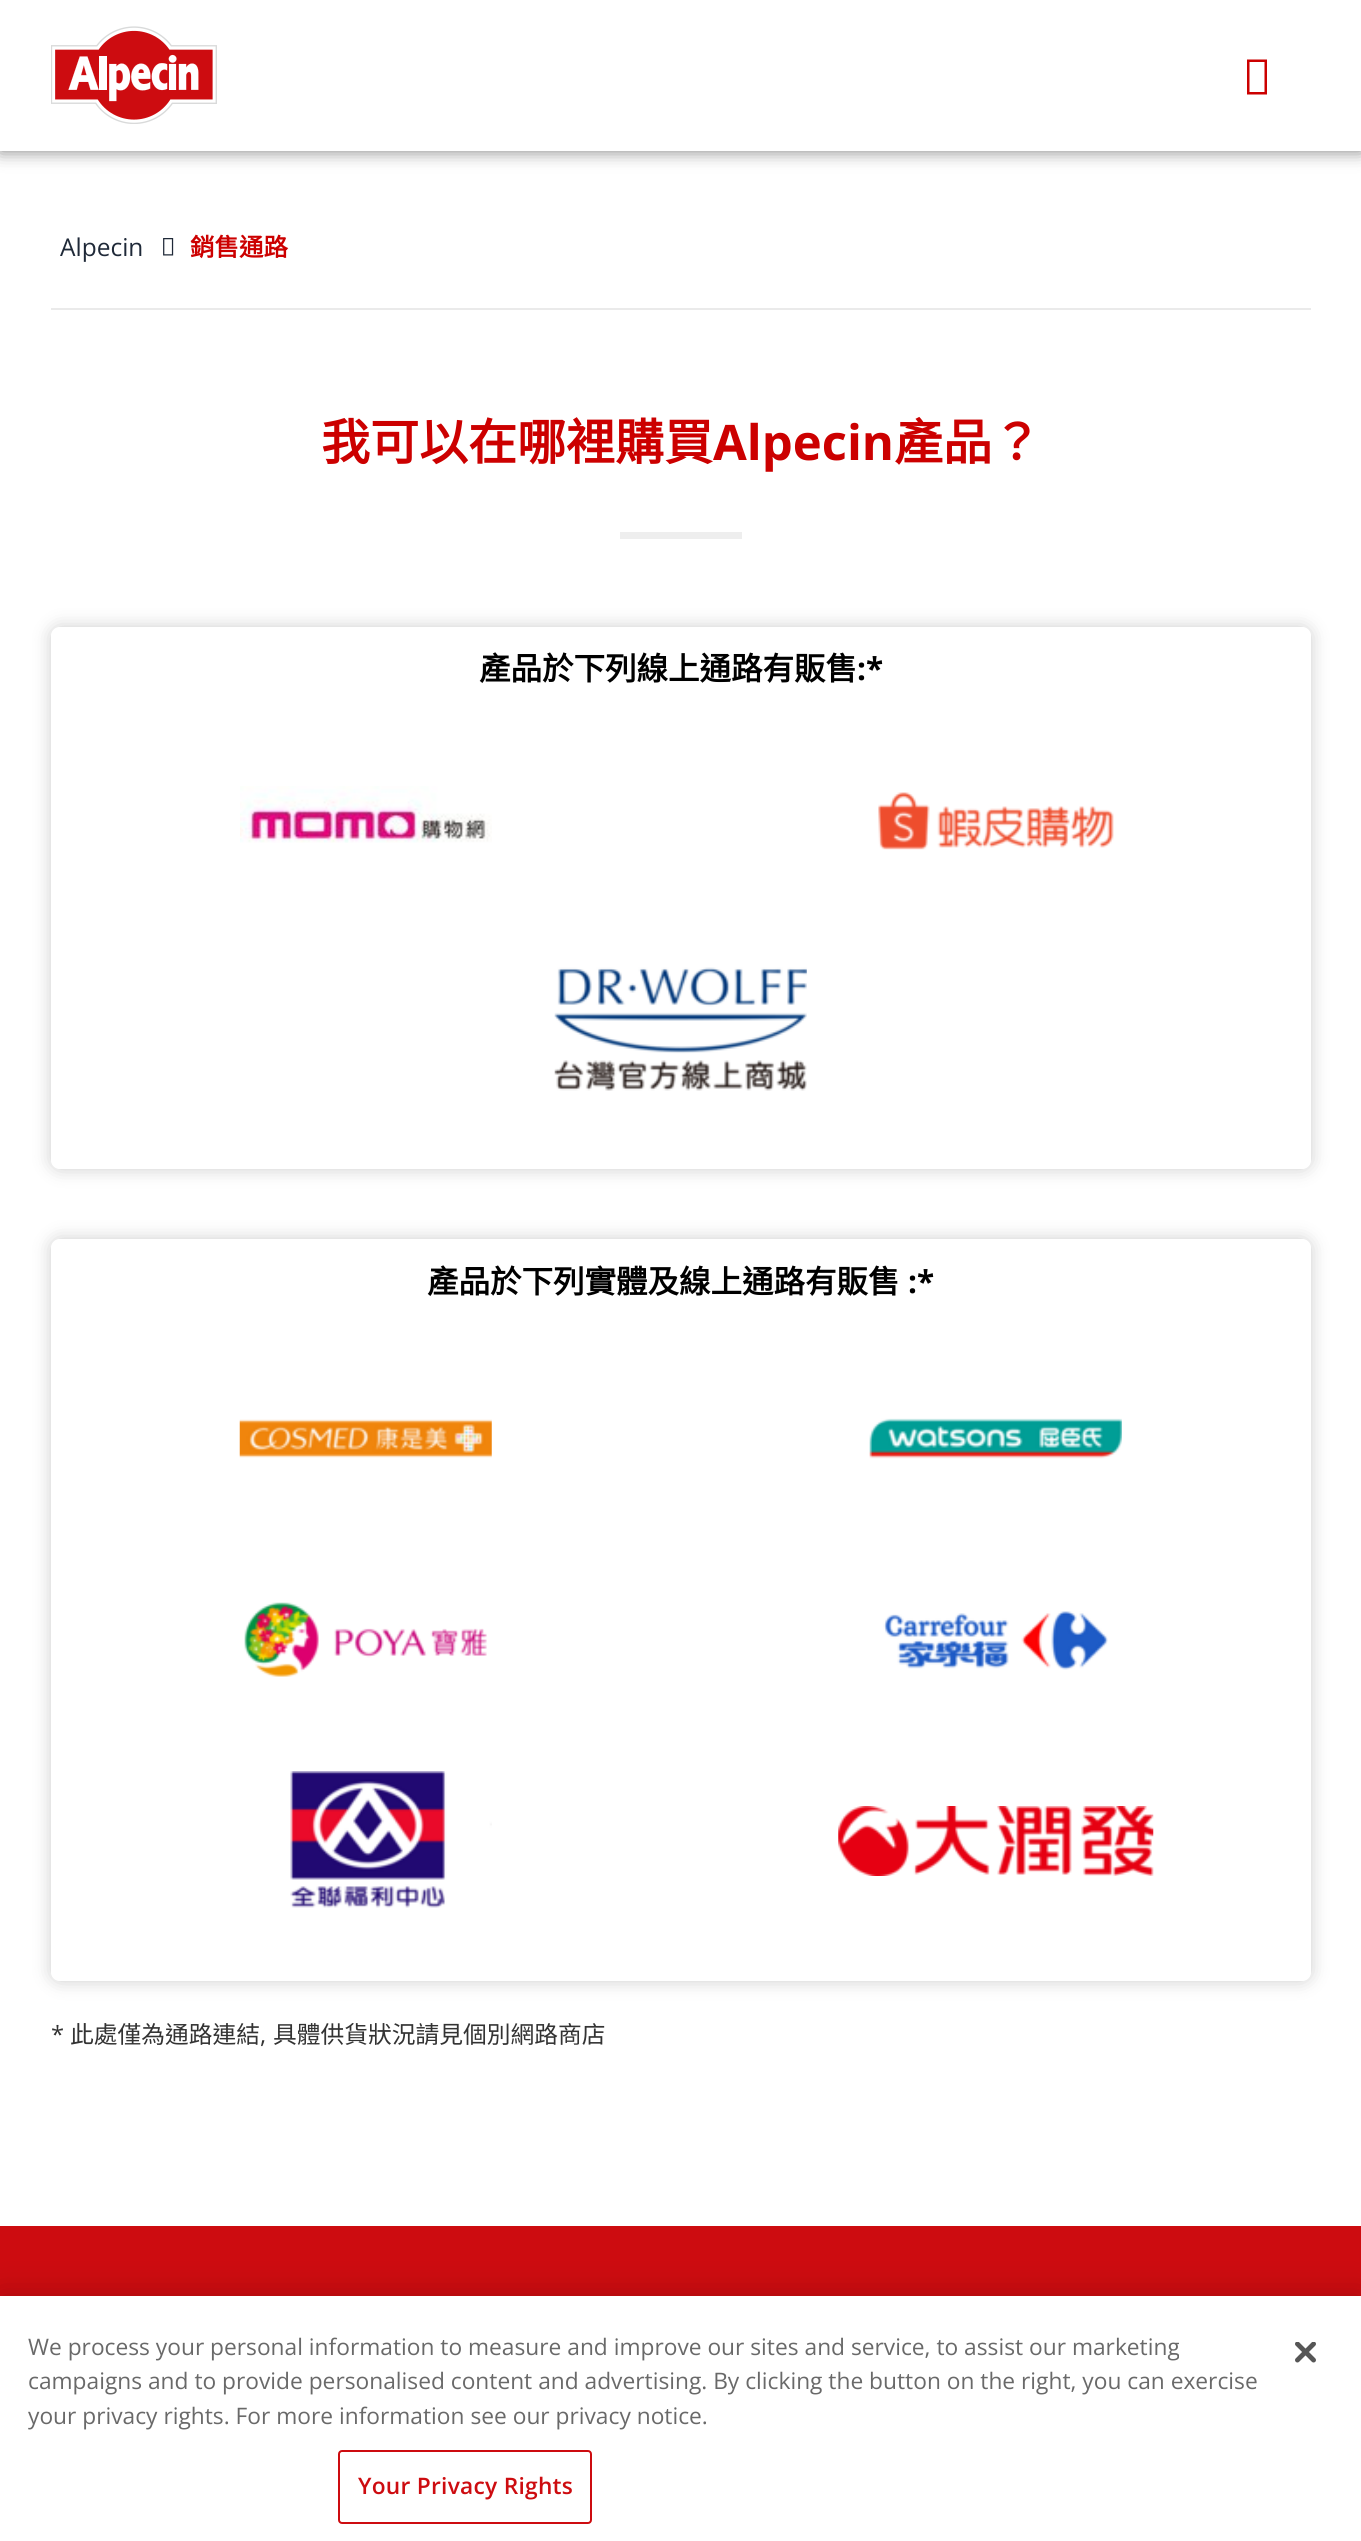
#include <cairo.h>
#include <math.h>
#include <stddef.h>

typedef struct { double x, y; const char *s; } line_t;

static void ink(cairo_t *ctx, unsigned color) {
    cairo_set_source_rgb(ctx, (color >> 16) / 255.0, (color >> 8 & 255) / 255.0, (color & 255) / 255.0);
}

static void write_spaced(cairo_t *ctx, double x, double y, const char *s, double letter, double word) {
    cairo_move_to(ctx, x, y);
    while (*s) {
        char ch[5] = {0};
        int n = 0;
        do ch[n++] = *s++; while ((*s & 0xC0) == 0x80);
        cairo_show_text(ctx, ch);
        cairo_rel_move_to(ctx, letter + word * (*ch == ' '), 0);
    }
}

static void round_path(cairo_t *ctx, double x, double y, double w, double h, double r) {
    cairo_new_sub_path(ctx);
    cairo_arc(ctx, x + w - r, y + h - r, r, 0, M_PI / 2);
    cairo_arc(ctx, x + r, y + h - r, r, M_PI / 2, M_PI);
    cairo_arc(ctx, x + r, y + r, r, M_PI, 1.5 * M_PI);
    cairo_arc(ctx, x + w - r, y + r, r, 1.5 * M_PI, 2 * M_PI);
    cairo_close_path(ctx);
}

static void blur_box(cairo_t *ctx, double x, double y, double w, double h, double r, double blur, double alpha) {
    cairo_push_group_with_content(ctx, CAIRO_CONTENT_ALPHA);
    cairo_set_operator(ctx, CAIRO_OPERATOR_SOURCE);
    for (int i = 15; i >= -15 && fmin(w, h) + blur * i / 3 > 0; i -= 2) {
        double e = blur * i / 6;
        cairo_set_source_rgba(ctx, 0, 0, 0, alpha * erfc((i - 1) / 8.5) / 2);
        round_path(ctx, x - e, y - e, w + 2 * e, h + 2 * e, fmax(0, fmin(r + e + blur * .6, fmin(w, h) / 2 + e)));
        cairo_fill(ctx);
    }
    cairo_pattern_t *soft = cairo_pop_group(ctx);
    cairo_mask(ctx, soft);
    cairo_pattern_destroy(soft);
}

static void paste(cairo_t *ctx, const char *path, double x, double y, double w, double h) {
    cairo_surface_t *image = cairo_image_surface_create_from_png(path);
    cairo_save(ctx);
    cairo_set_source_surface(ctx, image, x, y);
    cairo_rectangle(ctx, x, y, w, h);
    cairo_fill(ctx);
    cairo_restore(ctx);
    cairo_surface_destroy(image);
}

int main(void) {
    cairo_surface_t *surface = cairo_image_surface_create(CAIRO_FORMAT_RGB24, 1361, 2541);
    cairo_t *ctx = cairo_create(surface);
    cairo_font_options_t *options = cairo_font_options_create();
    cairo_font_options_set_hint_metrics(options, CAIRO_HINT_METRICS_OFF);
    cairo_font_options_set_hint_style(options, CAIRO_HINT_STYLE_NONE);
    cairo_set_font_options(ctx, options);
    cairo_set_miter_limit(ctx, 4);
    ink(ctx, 0xFFFFFF);
    cairo_paint(ctx);
    cairo_save(ctx);
    cairo_set_fill_rule(ctx, CAIRO_FILL_RULE_EVEN_ODD);
    cairo_new_path(ctx);
    cairo_move_to(ctx, 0, 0);
    cairo_line_to(ctx, 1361, 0);
    cairo_line_to(ctx, 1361, 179);
    cairo_line_to(ctx, 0, 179);
    cairo_close_path(ctx);
    cairo_move_to(ctx, 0, 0);
    cairo_line_to(ctx, 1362, 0);
    cairo_line_to(ctx, 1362, 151);
    cairo_line_to(ctx, 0, 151);
    cairo_close_path(ctx);
    cairo_clip(ctx);
    ink(ctx, 0x000000);
    blur_box(ctx, 0, 0, 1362, 151, 0, 9, 0.5);
    cairo_restore(ctx);
    paste(ctx, "media/1.png", 51, 26, 166, 98);
    ink(ctx, 0xCC0000);
    cairo_new_path(ctx);
    cairo_move_to(ctx, 1247, 94.5);
    cairo_line_to(ctx, 1247, 59.5);
    cairo_line_to(ctx, 1267, 59.5);
    cairo_line_to(ctx, 1267, 94.5);
    cairo_close_path(ctx);
    cairo_move_to(ctx, 1249.5, 92);
    cairo_line_to(ctx, 1264.5, 92);
    cairo_line_to(ctx, 1264.5, 62);
    cairo_line_to(ctx, 1249.5, 62);
    cairo_close_path(ctx);
    cairo_fill(ctx);
    ink(ctx, 0xEAEAEA);
    cairo_rectangle(ctx, 51, 308, 1260, 2);
    cairo_fill(ctx);
    cairo_select_font_face(ctx, "Open Sans", CAIRO_FONT_SLANT_NORMAL, CAIRO_FONT_WEIGHT_NORMAL);
    cairo_set_font_size(ctx, 24.5);
    ink(ctx, 0x1F2938);
    cairo_move_to(ctx, 60, 256);
    cairo_show_text(ctx, "Alpecin");
    paste(ctx, "media/2.png", 163, 238, 11, 18);
    cairo_select_font_face(ctx, "Noto Sans CJK TC", CAIRO_FONT_SLANT_NORMAL, CAIRO_FONT_WEIGHT_BOLD);
    ink(ctx, 0xCC0000);
    cairo_move_to(ctx, 190, 256);
    cairo_show_text(ctx, "銷售通路");
    cairo_set_font_size(ctx, 49);
    cairo_move_to(ctx, 321, 460);
    cairo_show_text(ctx, "我可以在哪裡購買");
    cairo_select_font_face(ctx, "Open Sans", CAIRO_FONT_SLANT_NORMAL, CAIRO_FONT_WEIGHT_BOLD);
    cairo_move_to(ctx, 713, 460);
    cairo_show_text(ctx, "Alpecin");
    cairo_select_font_face(ctx, "Noto Sans CJK TC", CAIRO_FONT_SLANT_NORMAL, CAIRO_FONT_WEIGHT_BOLD);
    cairo_move_to(ctx, 894, 460);
    cairo_show_text(ctx, "產品？");
    ink(ctx, 0xEEEEEE);
    cairo_rectangle(ctx, 620, 532, 122, 7);
    cairo_fill(ctx);
    cairo_save(ctx);
    cairo_set_fill_rule(ctx, CAIRO_FILL_RULE_EVEN_ODD);
    cairo_new_path(ctx);
    cairo_move_to(ctx, 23, 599);
    cairo_line_to(ctx, 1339, 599);
    cairo_line_to(ctx, 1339, 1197);
    cairo_line_to(ctx, 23, 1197);
    cairo_close_path(ctx);
    cairo_move_to(ctx, 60, 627);
    cairo_line_to(ctx, 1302, 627);
    cairo_curve_to(ctx, 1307, 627, 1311, 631, 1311, 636);
    cairo_line_to(ctx, 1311, 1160);
    cairo_curve_to(ctx, 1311, 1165, 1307, 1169, 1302, 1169);
    cairo_line_to(ctx, 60, 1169);
    cairo_curve_to(ctx, 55, 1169, 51, 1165, 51, 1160);
    cairo_line_to(ctx, 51, 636);
    cairo_curve_to(ctx, 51, 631, 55, 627, 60, 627);
    cairo_close_path(ctx);
    cairo_clip(ctx);
    ink(ctx, 0x000000);
    blur_box(ctx, 51, 627, 1260, 542, 9, 9, 0.2);
    cairo_restore(ctx);
    cairo_set_font_size(ctx, 31.5);
    ink(ctx, 0x000000);
    cairo_move_to(ctx, 479, 680);
    cairo_show_text(ctx, "產品於下列線上通路有販售");
    cairo_select_font_face(ctx, "Open Sans", CAIRO_FONT_SLANT_NORMAL, CAIRO_FONT_WEIGHT_BOLD);
    cairo_move_to(ctx, 857, 680);
    cairo_show_text(ctx, ":*");
    paste(ctx, "media/3.png", 240, 786, 252, 57);
    paste(ctx, "media/4.png", 878, 792, 236, 58);
    paste(ctx, "media/5.png", 554, 967, 253, 124);
    cairo_save(ctx);
    cairo_set_fill_rule(ctx, CAIRO_FILL_RULE_EVEN_ODD);
    cairo_new_path(ctx);
    cairo_move_to(ctx, 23, 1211);
    cairo_line_to(ctx, 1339, 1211);
    cairo_line_to(ctx, 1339, 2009);
    cairo_line_to(ctx, 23, 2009);
    cairo_close_path(ctx);
    cairo_move_to(ctx, 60, 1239);
    cairo_line_to(ctx, 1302, 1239);
    cairo_curve_to(ctx, 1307, 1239, 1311, 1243, 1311, 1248);
    cairo_line_to(ctx, 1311, 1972);
    cairo_curve_to(ctx, 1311, 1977, 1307, 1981, 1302, 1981);
    cairo_line_to(ctx, 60, 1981);
    cairo_curve_to(ctx, 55, 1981, 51, 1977, 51, 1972);
    cairo_line_to(ctx, 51, 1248);
    cairo_curve_to(ctx, 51, 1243, 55, 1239, 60, 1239);
    cairo_close_path(ctx);
    cairo_clip(ctx);
    ink(ctx, 0x000000);
    blur_box(ctx, 51, 1239, 1260, 742, 9, 9, 0.2);
    cairo_restore(ctx);
    cairo_select_font_face(ctx, "Noto Sans CJK TC", CAIRO_FONT_SLANT_NORMAL, CAIRO_FONT_WEIGHT_BOLD);
    cairo_move_to(ctx, 427, 1293);
    cairo_show_text(ctx, "產品於下列實體及線上通路有販售");
    cairo_select_font_face(ctx, "Open Sans", CAIRO_FONT_SLANT_NORMAL, CAIRO_FONT_WEIGHT_BOLD);
    cairo_move_to(ctx, 908, 1293);
    cairo_show_text(ctx, ":*");
    paste(ctx, "media/6.png", 239, 1419, 253, 39);
    paste(ctx, "media/7.png", 869, 1418, 253, 41);
    paste(ctx, "media/8.png", 244, 1602, 243, 75);
    paste(ctx, "media/9.png", 883, 1611, 225, 59);
    paste(ctx, "media/10.png", 290, 1771, 202, 137);
    paste(ctx, "media/11.png", 838, 1806, 316, 70);
    cairo_select_font_face(ctx, "Open Sans", CAIRO_FONT_SLANT_NORMAL, CAIRO_FONT_WEIGHT_NORMAL);
    cairo_set_font_size(ctx, 23.75);
    ink(ctx, 0x333333);
    cairo_move_to(ctx, 51, 2043);
    cairo_show_text(ctx, "*");
    cairo_select_font_face(ctx, "Noto Sans CJK TC", CAIRO_FONT_SLANT_NORMAL, CAIRO_FONT_WEIGHT_NORMAL);
    cairo_move_to(ctx, 70, 2043);
    cairo_show_text(ctx, "此處僅為通路連結");
    cairo_move_to(ctx, 273, 2043);
    cairo_show_text(ctx, "具體供貨狀況請見個別網路商店");
    cairo_select_font_face(ctx, "Open Sans", CAIRO_FONT_SLANT_NORMAL, CAIRO_FONT_WEIGHT_NORMAL);
    cairo_move_to(ctx, 260, 2043);
    cairo_show_text(ctx, ",");
    ink(ctx, 0xCD0C10);
    cairo_rectangle(ctx, 0, 2226, 1361, 70);
    cairo_fill(ctx);
    ink(ctx, 0x000000);
    blur_box(ctx, 0, 2296, 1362, 245, 0, 16, 0.2);
    ink(ctx, 0xFFFFFF);
    cairo_rectangle(ctx, 0, 2296, 1361, 245);
    cairo_fill(ctx);
    cairo_set_font_size(ctx, 22.75);
    ink(ctx, 0x696969);
    {
        static const line_t items[] = {
            {28, 2355, "We process your personal information to measure and improve our sites and service, to assist our marketing"},
            {28, 2389, "campaigns and to provide personalised content and advertising. By clicking the button on the right, you can exercise"},
            {28, 2424, "your privacy rights. For more information see our privacy notice."},
        };
        for (size_t i = 0; i < sizeof items / sizeof *items; i++) {
            cairo_move_to(ctx, items[i].x, items[i].y);
            cairo_show_text(ctx, items[i].s);
        }
    }
    round_path(ctx, 339, 2451, 252, 72, 3);
    ink(ctx, 0xCD0C10);
    cairo_stroke(ctx);
    cairo_select_font_face(ctx, "Open Sans SemiBold", CAIRO_FONT_SLANT_NORMAL, CAIRO_FONT_WEIGHT_NORMAL);
    write_spaced(ctx, 358, 2494, "Your Privacy Rights", 0.25, 0);
    paste(ctx, "media/12.png", 1295, 2342, 21, 21);
    cairo_surface_write_to_png(surface, "image.png");
    cairo_font_options_destroy(options);
    cairo_destroy(ctx);
    cairo_surface_destroy(surface);
    return 0;
}
